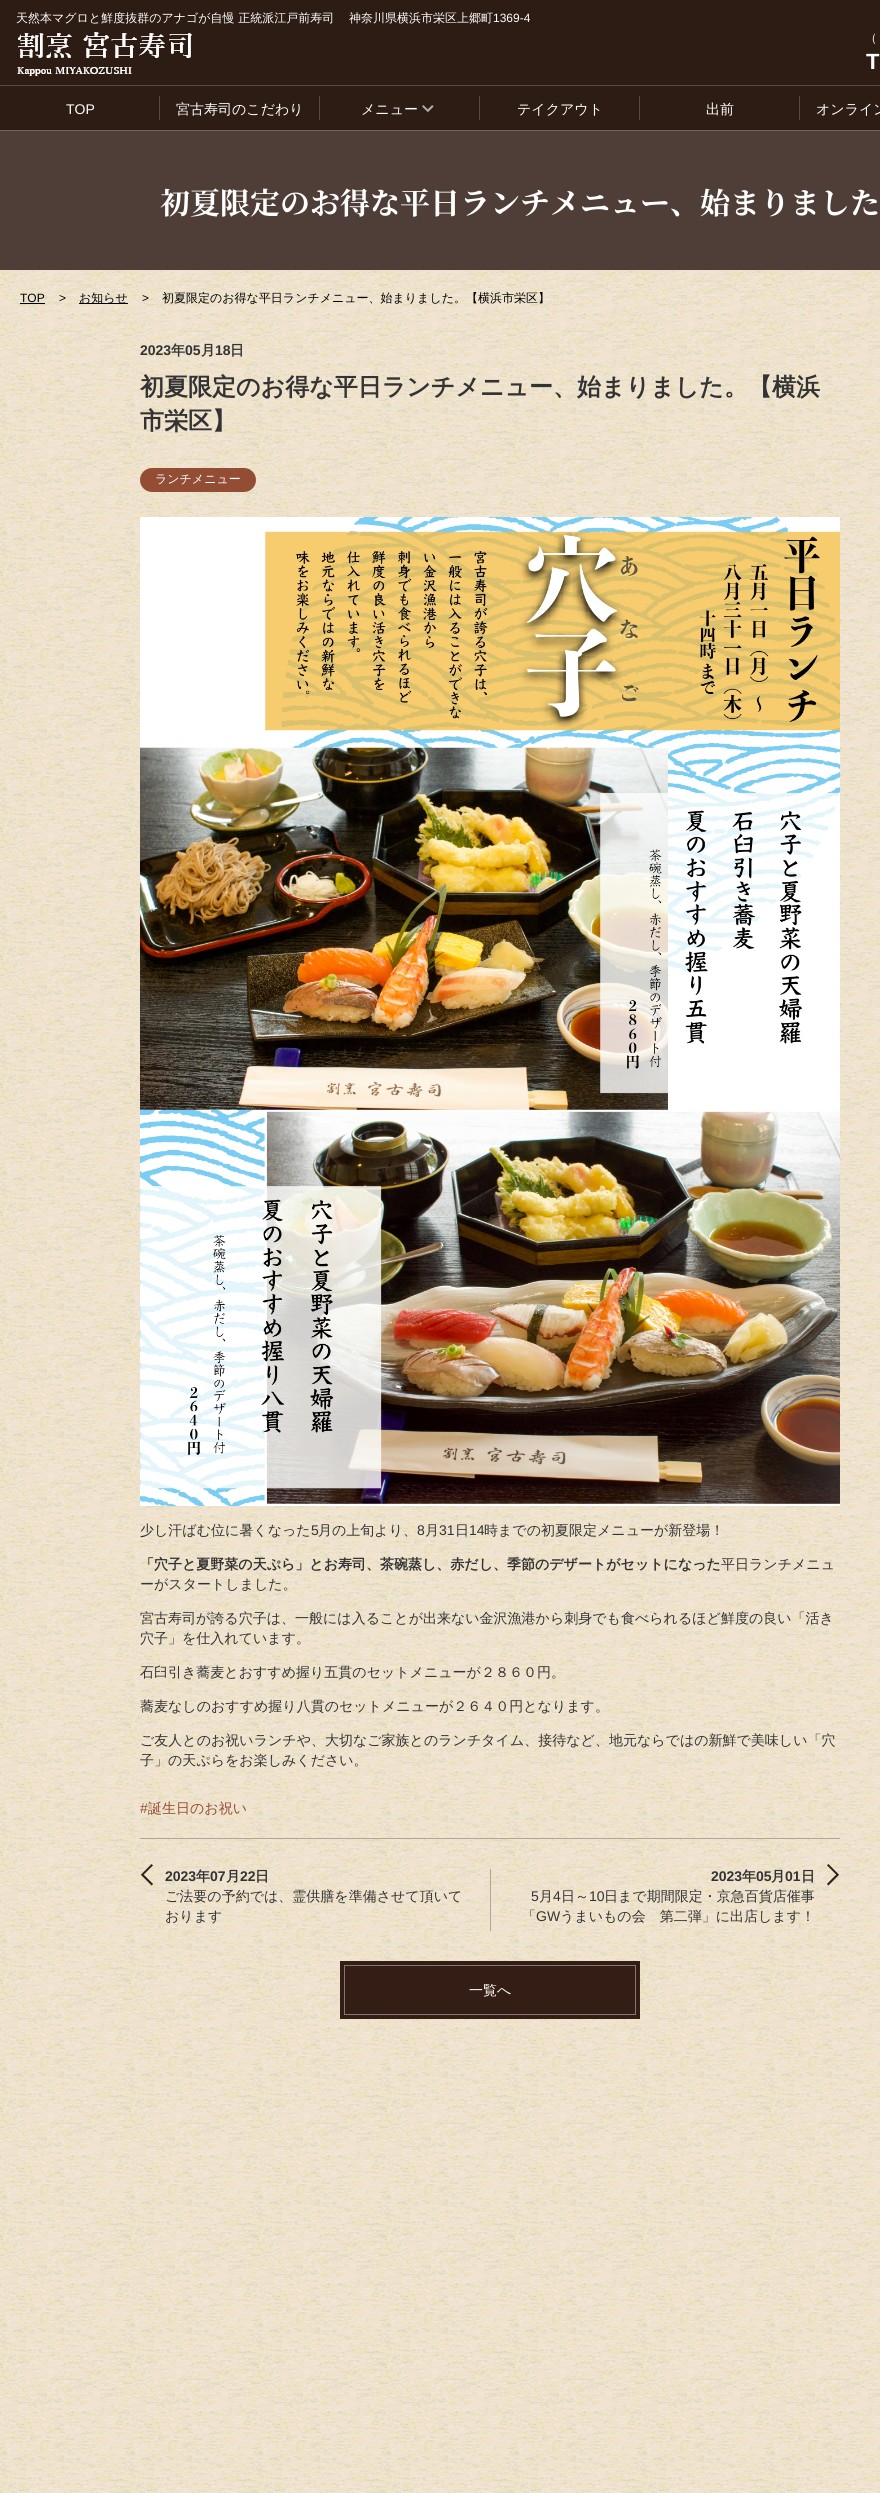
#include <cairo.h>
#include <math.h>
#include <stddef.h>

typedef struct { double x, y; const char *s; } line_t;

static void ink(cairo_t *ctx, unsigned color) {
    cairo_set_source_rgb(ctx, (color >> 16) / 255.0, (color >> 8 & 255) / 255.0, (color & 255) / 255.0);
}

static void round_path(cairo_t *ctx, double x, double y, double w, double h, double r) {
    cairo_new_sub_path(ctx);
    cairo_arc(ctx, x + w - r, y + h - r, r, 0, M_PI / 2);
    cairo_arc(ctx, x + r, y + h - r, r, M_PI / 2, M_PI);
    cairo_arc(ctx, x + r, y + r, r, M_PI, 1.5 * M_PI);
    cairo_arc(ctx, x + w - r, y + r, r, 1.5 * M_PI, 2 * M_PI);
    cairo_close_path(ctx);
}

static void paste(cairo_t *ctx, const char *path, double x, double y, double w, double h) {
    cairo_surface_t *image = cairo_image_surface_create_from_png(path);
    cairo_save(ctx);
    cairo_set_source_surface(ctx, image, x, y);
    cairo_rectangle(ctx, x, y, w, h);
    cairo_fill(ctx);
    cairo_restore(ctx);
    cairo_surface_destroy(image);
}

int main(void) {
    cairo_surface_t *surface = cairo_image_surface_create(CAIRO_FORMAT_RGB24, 880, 2493);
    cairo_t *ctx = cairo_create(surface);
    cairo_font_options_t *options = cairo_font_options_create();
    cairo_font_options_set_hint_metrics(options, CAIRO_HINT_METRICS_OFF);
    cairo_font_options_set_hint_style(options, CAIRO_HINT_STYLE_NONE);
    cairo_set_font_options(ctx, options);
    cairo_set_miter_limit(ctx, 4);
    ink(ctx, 0x2C1C14);
    cairo_paint(ctx);
    cairo_select_font_face(ctx, "WenQuanYi Zen Hei Medium", CAIRO_FONT_SLANT_NORMAL, CAIRO_FONT_WEIGHT_NORMAL);
    cairo_set_font_size(ctx, 12);
    ink(ctx, 0xFFFFFF);
    cairo_move_to(ctx, 16, 22);
    cairo_show_text(ctx, "天然本マグロと鮮度抜群のアナゴが自慢 正統派江戸前寿司");
    paste(ctx, "media/1.png", 17, 32, 175, 44);
    cairo_move_to(ctx, 349, 22);
    cairo_show_text(ctx, "神奈川県横浜市栄区上郷町");
    cairo_select_font_face(ctx, "Liberation Sans", CAIRO_FONT_SLANT_NORMAL, CAIRO_FONT_WEIGHT_NORMAL);
    cairo_move_to(ctx, 493, 22);
    cairo_show_text(ctx, "1369-4");
    cairo_select_font_face(ctx, "WenQuanYi Zen Hei Medium", CAIRO_FONT_SLANT_NORMAL, CAIRO_FONT_WEIGHT_NORMAL);
    cairo_move_to(ctx, 865, 42);
    cairo_show_text(ctx, "（");
    cairo_select_font_face(ctx, "Liberation Sans", CAIRO_FONT_SLANT_NORMAL, CAIRO_FONT_WEIGHT_BOLD);
    cairo_set_font_size(ctx, 22);
    cairo_move_to(ctx, 866, 69);
    cairo_show_text(ctx, "T");
    ink(ctx, 0x564943);
    cairo_rectangle(ctx, 0, 85, 880, 1);
    cairo_fill(ctx);
    ink(ctx, 0x71655F);
    cairo_rectangle(ctx, 0, 130, 880, 1);
    cairo_fill(ctx);
    cairo_select_font_face(ctx, "Liberation Sans", CAIRO_FONT_SLANT_NORMAL, CAIRO_FONT_WEIGHT_NORMAL);
    cairo_set_font_size(ctx, 14);
    ink(ctx, 0xFFFFFF);
    cairo_move_to(ctx, 66, 114);
    cairo_show_text(ctx, "TOP");
    ink(ctx, 0x564943);
    cairo_rectangle(ctx, 159, 96, 1, 24);
    cairo_fill(ctx);
    cairo_select_font_face(ctx, "WenQuanYi Zen Hei Medium", CAIRO_FONT_SLANT_NORMAL, CAIRO_FONT_WEIGHT_NORMAL);
    ink(ctx, 0xFFFFFF);
    cairo_move_to(ctx, 176, 114);
    cairo_show_text(ctx, "宮古寿司のこだわり");
    ink(ctx, 0x564943);
    cairo_rectangle(ctx, 319, 96, 1, 24);
    cairo_fill(ctx);
    ink(ctx, 0xFFFFFF);
    cairo_move_to(ctx, 361, 114);
    cairo_show_text(ctx, "メニュー");
    paste(ctx, "media/2.png", 422, 105, 12, 8);
    ink(ctx, 0x564943);
    cairo_rectangle(ctx, 479, 96, 1, 24);
    cairo_fill(ctx);
    ink(ctx, 0xFFFFFF);
    cairo_move_to(ctx, 517, 114);
    cairo_show_text(ctx, "テイクアウト");
    ink(ctx, 0x564943);
    cairo_rectangle(ctx, 639, 96, 1, 24);
    cairo_fill(ctx);
    ink(ctx, 0xFFFFFF);
    cairo_move_to(ctx, 706, 114);
    cairo_show_text(ctx, "出前");
    ink(ctx, 0x564943);
    cairo_rectangle(ctx, 799, 96, 1, 24);
    cairo_fill(ctx);
    ink(ctx, 0xFFFFFF);
    cairo_move_to(ctx, 816, 114);
    cairo_show_text(ctx, "オンライン");
    ink(ctx, 0x4E3E37);
    cairo_rectangle(ctx, 0, 131, 880, 139);
    cairo_fill(ctx);
    cairo_select_font_face(ctx, "Noto Serif JP", CAIRO_FONT_SLANT_NORMAL, CAIRO_FONT_WEIGHT_BOLD);
    cairo_set_font_size(ctx, 30);
    ink(ctx, 0xFFFFFF);
    cairo_move_to(ctx, 160, 214);
    cairo_show_text(ctx, "初夏限定のお得な平日ランチメニュー、始まりました");
    ink(ctx, 0xF0E1D1);
    cairo_rectangle(ctx, 0, 270, 880, 2223);
    cairo_fill(ctx);
    paste(ctx, "media/3.png", 0, 270, 880, 50);
    cairo_select_font_face(ctx, "Liberation Sans", CAIRO_FONT_SLANT_NORMAL, CAIRO_FONT_WEIGHT_NORMAL);
    cairo_set_font_size(ctx, 12);
    ink(ctx, 0x000000);
    cairo_move_to(ctx, 20, 302);
    cairo_show_text(ctx, "TOP");
    cairo_rectangle(ctx, 20, 303, 25, 1);
    cairo_fill(ctx);
    cairo_move_to(ctx, 59, 302);
    cairo_show_text(ctx, ">");
    cairo_rectangle(ctx, 79, 303, 49, 1);
    cairo_fill(ctx);
    cairo_select_font_face(ctx, "WenQuanYi Zen Hei Medium", CAIRO_FONT_SLANT_NORMAL, CAIRO_FONT_WEIGHT_NORMAL);
    cairo_move_to(ctx, 79, 302);
    cairo_show_text(ctx, "お知らせ");
    cairo_select_font_face(ctx, "Liberation Sans", CAIRO_FONT_SLANT_NORMAL, CAIRO_FONT_WEIGHT_NORMAL);
    cairo_move_to(ctx, 142, 302);
    cairo_show_text(ctx, ">");
    cairo_select_font_face(ctx, "WenQuanYi Zen Hei Medium", CAIRO_FONT_SLANT_NORMAL, CAIRO_FONT_WEIGHT_NORMAL);
    cairo_move_to(ctx, 162, 302);
    cairo_show_text(ctx, "初夏限定のお得な平日ランチメニュー、始まりました。【横浜市栄区】");
    paste(ctx, "media/4.png", 0, 320, 880, 2173);
    cairo_select_font_face(ctx, "Liberation Sans", CAIRO_FONT_SLANT_NORMAL, CAIRO_FONT_WEIGHT_BOLD);
    cairo_set_font_size(ctx, 14);
    ink(ctx, 0x333333);
    cairo_move_to(ctx, 140, 355);
    cairo_show_text(ctx, "2023");
    cairo_select_font_face(ctx, "WenQuanYi Zen Hei", CAIRO_FONT_SLANT_NORMAL, CAIRO_FONT_WEIGHT_BOLD);
    cairo_move_to(ctx, 171, 355);
    cairo_show_text(ctx, "年");
    cairo_select_font_face(ctx, "Liberation Sans", CAIRO_FONT_SLANT_NORMAL, CAIRO_FONT_WEIGHT_BOLD);
    cairo_move_to(ctx, 185, 355);
    cairo_show_text(ctx, "05");
    cairo_select_font_face(ctx, "WenQuanYi Zen Hei", CAIRO_FONT_SLANT_NORMAL, CAIRO_FONT_WEIGHT_BOLD);
    cairo_move_to(ctx, 201, 355);
    cairo_show_text(ctx, "月");
    cairo_select_font_face(ctx, "Liberation Sans", CAIRO_FONT_SLANT_NORMAL, CAIRO_FONT_WEIGHT_BOLD);
    cairo_move_to(ctx, 215, 355);
    cairo_show_text(ctx, "18");
    cairo_select_font_face(ctx, "WenQuanYi Zen Hei", CAIRO_FONT_SLANT_NORMAL, CAIRO_FONT_WEIGHT_BOLD);
    cairo_move_to(ctx, 230, 355);
    cairo_show_text(ctx, "日");
    cairo_set_font_size(ctx, 24);
    cairo_move_to(ctx, 140, 395);
    cairo_show_text(ctx, "初夏限定のお得な平日ランチメニュー、始まりました。【横浜");
    cairo_move_to(ctx, 140, 429);
    cairo_show_text(ctx, "市栄区】");
    ink(ctx, 0x934D34);
    round_path(ctx, 140, 468, 116, 24, 12);
    cairo_fill(ctx);
    cairo_select_font_face(ctx, "WenQuanYi Zen Hei Medium", CAIRO_FONT_SLANT_NORMAL, CAIRO_FONT_WEIGHT_NORMAL);
    cairo_set_font_size(ctx, 12);
    ink(ctx, 0xFFFFFF);
    cairo_move_to(ctx, 155, 483);
    cairo_show_text(ctx, "ランチメニュー");
    paste(ctx, "media/5.png", 140, 517, 700, 989);
    cairo_set_font_size(ctx, 14);
    ink(ctx, 0x333333);
    cairo_move_to(ctx, 140, 1535);
    cairo_show_text(ctx, "少し汗ばむ位に暑くなった");
    cairo_select_font_face(ctx, "Liberation Sans", CAIRO_FONT_SLANT_NORMAL, CAIRO_FONT_WEIGHT_NORMAL);
    cairo_move_to(ctx, 311, 1535);
    cairo_show_text(ctx, "5");
    cairo_select_font_face(ctx, "WenQuanYi Zen Hei Medium", CAIRO_FONT_SLANT_NORMAL, CAIRO_FONT_WEIGHT_NORMAL);
    cairo_move_to(ctx, 318, 1535);
    cairo_show_text(ctx, "月の上旬より、");
    cairo_select_font_face(ctx, "Liberation Sans", CAIRO_FONT_SLANT_NORMAL, CAIRO_FONT_WEIGHT_NORMAL);
    cairo_move_to(ctx, 417, 1535);
    cairo_show_text(ctx, "8");
    cairo_select_font_face(ctx, "WenQuanYi Zen Hei Medium", CAIRO_FONT_SLANT_NORMAL, CAIRO_FONT_WEIGHT_NORMAL);
    cairo_move_to(ctx, 425, 1535);
    cairo_show_text(ctx, "月");
    cairo_select_font_face(ctx, "Liberation Sans", CAIRO_FONT_SLANT_NORMAL, CAIRO_FONT_WEIGHT_NORMAL);
    cairo_move_to(ctx, 439, 1535);
    cairo_show_text(ctx, "31");
    cairo_select_font_face(ctx, "WenQuanYi Zen Hei Medium", CAIRO_FONT_SLANT_NORMAL, CAIRO_FONT_WEIGHT_NORMAL);
    cairo_move_to(ctx, 455, 1535);
    cairo_show_text(ctx, "日");
    cairo_select_font_face(ctx, "Liberation Sans", CAIRO_FONT_SLANT_NORMAL, CAIRO_FONT_WEIGHT_NORMAL);
    cairo_move_to(ctx, 469, 1535);
    cairo_show_text(ctx, "14");
    cairo_select_font_face(ctx, "WenQuanYi Zen Hei Medium", CAIRO_FONT_SLANT_NORMAL, CAIRO_FONT_WEIGHT_NORMAL);
    cairo_move_to(ctx, 484, 1535);
    cairo_show_text(ctx, "時までの初夏限定メニューが新登場！");
    cairo_select_font_face(ctx, "WenQuanYi Zen Hei", CAIRO_FONT_SLANT_NORMAL, CAIRO_FONT_WEIGHT_BOLD);
    cairo_move_to(ctx, 140, 1569);
    cairo_show_text(ctx, "「穴子と夏野菜の天ぷら」とお寿司、茶碗蒸し、赤だし、季節のデザートがセットになった");
    cairo_select_font_face(ctx, "WenQuanYi Zen Hei Medium", CAIRO_FONT_SLANT_NORMAL, CAIRO_FONT_WEIGHT_NORMAL);
    {
        static const line_t items[] = {
            {721, 1569, "平日ランチメニュ"},
            {140, 1589, "ーがスタートしました。"},
            {140, 1623, "宮古寿司が誇る穴子は、一般には入ることが出来ない金沢漁港から刺身でも食べられるほど鮮度の良い「活き"},
            {140, 1643, "穴子」を仕入れています。"},
            {140, 1677, "石臼引き蕎麦とおすすめ握り五貫のセットメニューが２８６０円。"},
            {140, 1711, "蕎麦なしのおすすめ握り八貫のセットメニューが２６４０円となります。"},
            {140, 1745, "ご友人とのお祝いランチや、大切なご家族とのランチタイム、接待など、地元ならではの新鮮で美味しい「穴"},
            {140, 1765, "子」の天ぷらをお楽しみください。"},
        };
        for (size_t i = 0; i < sizeof items / sizeof *items; i++) {
            cairo_move_to(ctx, items[i].x, items[i].y);
            cairo_show_text(ctx, items[i].s);
        }
    }
    cairo_select_font_face(ctx, "Liberation Sans", CAIRO_FONT_SLANT_NORMAL, CAIRO_FONT_WEIGHT_NORMAL);
    ink(ctx, 0x934D34);
    cairo_move_to(ctx, 140, 1813);
    cairo_show_text(ctx, "#");
    cairo_select_font_face(ctx, "WenQuanYi Zen Hei Medium", CAIRO_FONT_SLANT_NORMAL, CAIRO_FONT_WEIGHT_NORMAL);
    cairo_move_to(ctx, 148, 1813);
    cairo_show_text(ctx, "誕生日のお祝い");
    ink(ctx, 0xB4A695);
    cairo_rectangle(ctx, 140, 1838, 700, 1);
    cairo_fill(ctx);
    paste(ctx, "media/6.png", 140, 1864, 13, 22);
    cairo_select_font_face(ctx, "Liberation Sans", CAIRO_FONT_SLANT_NORMAL, CAIRO_FONT_WEIGHT_BOLD);
    ink(ctx, 0x333333);
    cairo_move_to(ctx, 165, 1881);
    cairo_show_text(ctx, "2023");
    cairo_select_font_face(ctx, "WenQuanYi Zen Hei", CAIRO_FONT_SLANT_NORMAL, CAIRO_FONT_WEIGHT_BOLD);
    cairo_move_to(ctx, 196, 1881);
    cairo_show_text(ctx, "年");
    cairo_select_font_face(ctx, "Liberation Sans", CAIRO_FONT_SLANT_NORMAL, CAIRO_FONT_WEIGHT_BOLD);
    cairo_move_to(ctx, 210, 1881);
    cairo_show_text(ctx, "07");
    cairo_select_font_face(ctx, "WenQuanYi Zen Hei", CAIRO_FONT_SLANT_NORMAL, CAIRO_FONT_WEIGHT_BOLD);
    cairo_move_to(ctx, 226, 1881);
    cairo_show_text(ctx, "月");
    cairo_select_font_face(ctx, "Liberation Sans", CAIRO_FONT_SLANT_NORMAL, CAIRO_FONT_WEIGHT_BOLD);
    cairo_move_to(ctx, 240, 1881);
    cairo_show_text(ctx, "22");
    cairo_select_font_face(ctx, "WenQuanYi Zen Hei", CAIRO_FONT_SLANT_NORMAL, CAIRO_FONT_WEIGHT_BOLD);
    cairo_move_to(ctx, 255, 1881);
    cairo_show_text(ctx, "日");
    cairo_select_font_face(ctx, "WenQuanYi Zen Hei Medium", CAIRO_FONT_SLANT_NORMAL, CAIRO_FONT_WEIGHT_NORMAL);
    cairo_move_to(ctx, 165, 1901);
    cairo_show_text(ctx, "ご法要の予約では、霊供膳を準備させて頂いて");
    cairo_move_to(ctx, 165, 1921);
    cairo_show_text(ctx, "おります");
    ink(ctx, 0xB4A695);
    cairo_rectangle(ctx, 490, 1869, 1, 62);
    cairo_fill(ctx);
    cairo_select_font_face(ctx, "Liberation Sans", CAIRO_FONT_SLANT_NORMAL, CAIRO_FONT_WEIGHT_BOLD);
    ink(ctx, 0x333333);
    cairo_move_to(ctx, 711, 1881);
    cairo_show_text(ctx, "2023");
    cairo_select_font_face(ctx, "WenQuanYi Zen Hei", CAIRO_FONT_SLANT_NORMAL, CAIRO_FONT_WEIGHT_BOLD);
    cairo_move_to(ctx, 742, 1881);
    cairo_show_text(ctx, "年");
    cairo_select_font_face(ctx, "Liberation Sans", CAIRO_FONT_SLANT_NORMAL, CAIRO_FONT_WEIGHT_BOLD);
    cairo_move_to(ctx, 756, 1881);
    cairo_show_text(ctx, "05");
    cairo_select_font_face(ctx, "WenQuanYi Zen Hei", CAIRO_FONT_SLANT_NORMAL, CAIRO_FONT_WEIGHT_BOLD);
    cairo_move_to(ctx, 771, 1881);
    cairo_show_text(ctx, "月");
    cairo_select_font_face(ctx, "Liberation Sans", CAIRO_FONT_SLANT_NORMAL, CAIRO_FONT_WEIGHT_BOLD);
    cairo_move_to(ctx, 785, 1881);
    cairo_show_text(ctx, "01");
    cairo_select_font_face(ctx, "WenQuanYi Zen Hei", CAIRO_FONT_SLANT_NORMAL, CAIRO_FONT_WEIGHT_BOLD);
    cairo_move_to(ctx, 801, 1881);
    cairo_show_text(ctx, "日");
    paste(ctx, "media/7.png", 827, 1864, 12, 22);
    cairo_select_font_face(ctx, "Liberation Sans", CAIRO_FONT_SLANT_NORMAL, CAIRO_FONT_WEIGHT_NORMAL);
    cairo_move_to(ctx, 531, 1901);
    cairo_show_text(ctx, "5");
    cairo_select_font_face(ctx, "WenQuanYi Zen Hei Medium", CAIRO_FONT_SLANT_NORMAL, CAIRO_FONT_WEIGHT_NORMAL);
    cairo_move_to(ctx, 539, 1901);
    cairo_show_text(ctx, "月");
    cairo_select_font_face(ctx, "Liberation Sans", CAIRO_FONT_SLANT_NORMAL, CAIRO_FONT_WEIGHT_NORMAL);
    cairo_move_to(ctx, 553, 1901);
    cairo_show_text(ctx, "4");
    cairo_select_font_face(ctx, "WenQuanYi Zen Hei Medium", CAIRO_FONT_SLANT_NORMAL, CAIRO_FONT_WEIGHT_NORMAL);
    cairo_move_to(ctx, 561, 1901);
    cairo_show_text(ctx, "日～");
    cairo_select_font_face(ctx, "Liberation Sans", CAIRO_FONT_SLANT_NORMAL, CAIRO_FONT_WEIGHT_NORMAL);
    cairo_move_to(ctx, 589, 1901);
    cairo_show_text(ctx, "10");
    cairo_select_font_face(ctx, "WenQuanYi Zen Hei Medium", CAIRO_FONT_SLANT_NORMAL, CAIRO_FONT_WEIGHT_NORMAL);
    cairo_move_to(ctx, 604, 1901);
    cairo_show_text(ctx, "日まで期間限定・京急百貨店催事");
    cairo_move_to(ctx, 522, 1921);
    cairo_show_text(ctx, "「");
    cairo_select_font_face(ctx, "Liberation Sans", CAIRO_FONT_SLANT_NORMAL, CAIRO_FONT_WEIGHT_NORMAL);
    cairo_move_to(ctx, 536, 1921);
    cairo_show_text(ctx, "GW");
    cairo_select_font_face(ctx, "WenQuanYi Zen Hei Medium", CAIRO_FONT_SLANT_NORMAL, CAIRO_FONT_WEIGHT_NORMAL);
    cairo_move_to(ctx, 560, 1921);
    cairo_show_text(ctx, "うまいもの会　第二弾」に出店します！");
    ink(ctx, 0x341D14);
    cairo_rectangle(ctx, 340, 1961, 300, 58);
    cairo_fill(ctx);
    cairo_rectangle(ctx, 344.5, 1965.5, 291, 49);
    ink(ctx, 0x857772);
    cairo_set_line_width(ctx, 1);
    cairo_stroke(ctx);
    ink(ctx, 0xFFFFFF);
    cairo_move_to(ctx, 469, 1995);
    cairo_show_text(ctx, "一覧へ");
    cairo_surface_write_to_png(surface, "image.png");
    cairo_font_options_destroy(options);
    cairo_destroy(ctx);
    cairo_surface_destroy(surface);
    return 0;
}
